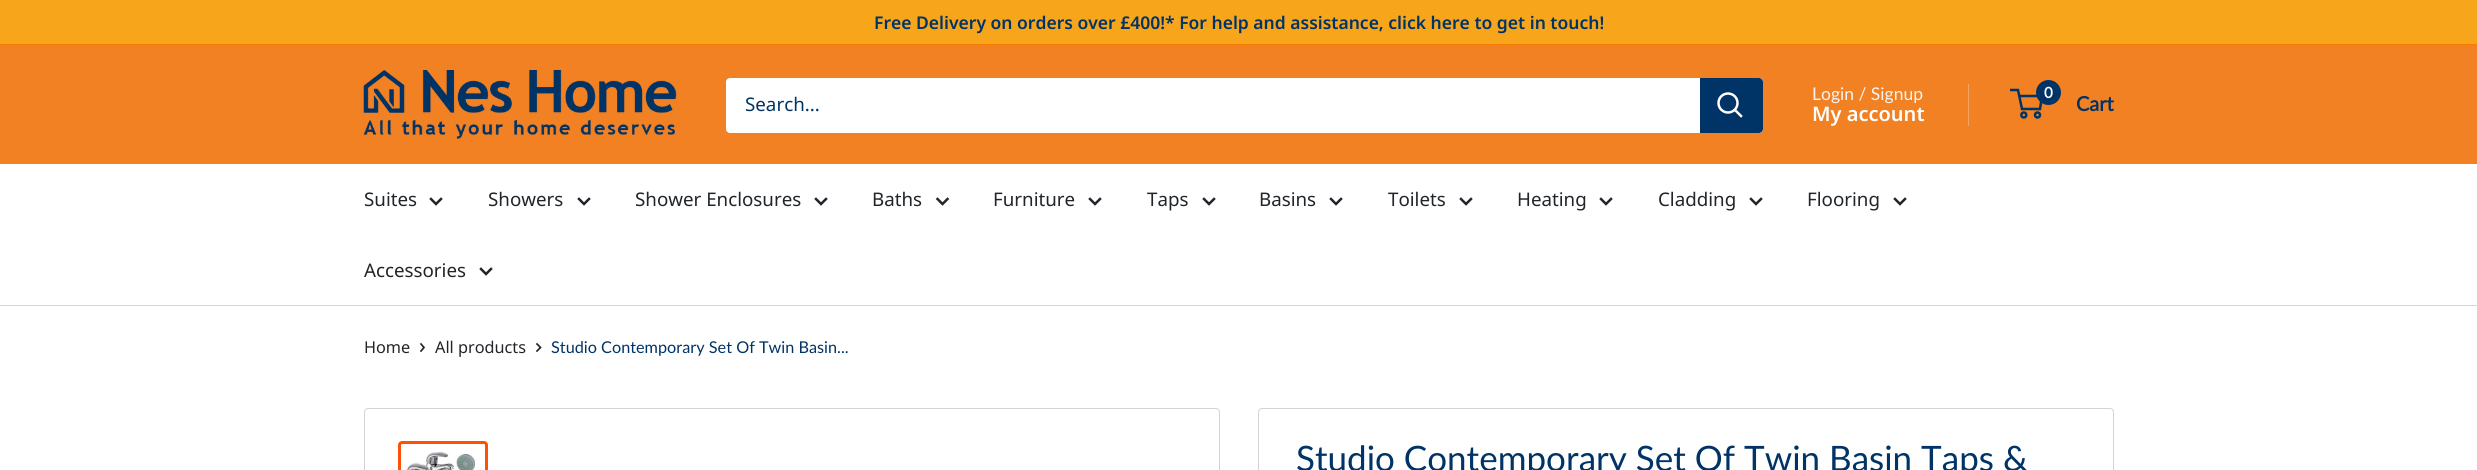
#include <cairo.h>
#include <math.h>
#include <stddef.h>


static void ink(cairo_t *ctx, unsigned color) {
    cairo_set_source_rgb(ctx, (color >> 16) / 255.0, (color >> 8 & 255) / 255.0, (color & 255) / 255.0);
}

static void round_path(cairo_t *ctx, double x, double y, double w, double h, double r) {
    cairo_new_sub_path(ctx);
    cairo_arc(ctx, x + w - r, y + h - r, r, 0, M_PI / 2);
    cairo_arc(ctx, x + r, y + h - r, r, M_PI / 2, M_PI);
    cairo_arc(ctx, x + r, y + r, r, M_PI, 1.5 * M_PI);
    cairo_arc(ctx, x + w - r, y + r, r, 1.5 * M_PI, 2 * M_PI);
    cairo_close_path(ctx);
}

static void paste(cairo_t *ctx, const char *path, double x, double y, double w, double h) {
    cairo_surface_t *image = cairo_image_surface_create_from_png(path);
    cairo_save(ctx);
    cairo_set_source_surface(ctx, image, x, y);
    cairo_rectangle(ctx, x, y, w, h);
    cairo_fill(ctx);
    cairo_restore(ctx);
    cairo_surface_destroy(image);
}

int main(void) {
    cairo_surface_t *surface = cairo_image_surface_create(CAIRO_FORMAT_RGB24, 2477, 470);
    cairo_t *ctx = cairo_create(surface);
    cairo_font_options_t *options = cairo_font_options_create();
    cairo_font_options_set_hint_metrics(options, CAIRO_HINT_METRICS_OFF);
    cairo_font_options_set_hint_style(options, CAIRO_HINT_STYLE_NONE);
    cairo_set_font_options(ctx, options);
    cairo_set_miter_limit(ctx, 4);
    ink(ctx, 0xFFFFFF);
    cairo_paint(ctx);
    ink(ctx, 0xF7A51B);
    cairo_rectangle(ctx, 0, 0, 2477, 44);
    cairo_fill(ctx);
    ink(ctx, 0xF67D00);
    cairo_rectangle(ctx, 0, 44, 2477, 1);
    cairo_fill(ctx);
    cairo_select_font_face(ctx, "Noto Sans SemiBold", CAIRO_FONT_SLANT_NORMAL, CAIRO_FONT_WEIGHT_NORMAL);
    cairo_set_font_size(ctx, 17.5);
    ink(ctx, 0x003366);
    cairo_move_to(ctx, 874, 29);
    cairo_show_text(ctx, "Free Delivery on orders over £400!* For help and assistance, click here to get in touch!");
    ink(ctx, 0xF28123);
    cairo_rectangle(ctx, 0, 45, 2477, 119);
    cairo_fill(ctx);
    paste(ctx, "media/1.png", 363, 70, 314, 69);
    ink(ctx, 0xFFFFFF);
    round_path(ctx, 726, 78, 1037, 55, 4);
    cairo_fill(ctx);
    cairo_select_font_face(ctx, "Noto Sans", CAIRO_FONT_SLANT_NORMAL, CAIRO_FONT_WEIGHT_NORMAL);
    cairo_set_font_size(ctx, 18.75);
    ink(ctx, 0x003366);
    cairo_move_to(ctx, 745, 111);
    cairo_show_text(ctx, "Search...");
    cairo_new_path(ctx);
    cairo_move_to(ctx, 1700, 78);
    cairo_line_to(ctx, 1759, 78);
    cairo_curve_to(ctx, 1761, 78, 1763, 80, 1763, 82);
    cairo_line_to(ctx, 1763, 129);
    cairo_curve_to(ctx, 1763, 131, 1761, 133, 1759, 133);
    cairo_line_to(ctx, 1700, 133);
    cairo_close_path(ctx);
    cairo_fill(ctx);
    cairo_new_path(ctx);
    cairo_move_to(ctx, 1741, 116);
    cairo_line_to(ctx, 1735, 110);
    ink(ctx, 0xFFFFFF);
    cairo_set_line_width(ctx, 2.5);
    cairo_set_line_cap(ctx, CAIRO_LINE_CAP_SQUARE);
    cairo_stroke(ctx);
    cairo_arc(ctx, 1728, 103, 9.5, 0, 2 * M_PI);
    cairo_set_line_cap(ctx, CAIRO_LINE_CAP_BUTT);
    cairo_stroke(ctx);
    cairo_select_font_face(ctx, "Lato", CAIRO_FONT_SLANT_NORMAL, CAIRO_FONT_WEIGHT_NORMAL);
    cairo_set_font_size(ctx, 17.5);
    ink(ctx, 0xF7F4F2);
    cairo_move_to(ctx, 1812, 100);
    cairo_show_text(ctx, "Login / Signup");
    ink(ctx, 0xF4A461);
    cairo_rectangle(ctx, 1968, 84, 1, 42);
    cairo_fill(ctx);
    cairo_select_font_face(ctx, "Noto Sans SemiBold", CAIRO_FONT_SLANT_NORMAL, CAIRO_FONT_WEIGHT_NORMAL);
    cairo_set_font_size(ctx, 20);
    ink(ctx, 0xFFFFFF);
    cairo_move_to(ctx, 1812, 121);
    cairo_show_text(ctx, "My account");
    cairo_new_path(ctx);
    cairo_arc(ctx, 2023.8, 115, 2.5, 0, 2 * M_PI);
    ink(ctx, 0x003366);
    cairo_stroke(ctx);
    cairo_arc(ctx, 2037.5, 115, 2.5, 0, 2 * M_PI);
    cairo_stroke(ctx);
    cairo_new_path(ctx);
    cairo_move_to(ctx, 2019, 96);
    cairo_line_to(ctx, 2042, 96);
    cairo_line_to(ctx, 2040, 109);
    cairo_line_to(ctx, 2022, 109);
    cairo_line_to(ctx, 2018, 90);
    cairo_line_to(ctx, 2010, 90);
    cairo_stroke(ctx);
    cairo_arc(ctx, 2048.5, 92.5, 12.5, 0, 2 * M_PI);
    cairo_fill(ctx);
    cairo_select_font_face(ctx, "Lato", CAIRO_FONT_SLANT_NORMAL, CAIRO_FONT_WEIGHT_BOLD);
    cairo_set_font_size(ctx, 15);
    ink(ctx, 0xFFFFFF);
    cairo_move_to(ctx, 2044, 98);
    cairo_show_text(ctx, "0");
    cairo_set_font_size(ctx, 20);
    ink(ctx, 0x003366);
    cairo_move_to(ctx, 2076, 111);
    cairo_show_text(ctx, "Cart");
    ink(ctx, 0xD6D3D2);
    cairo_rectangle(ctx, 0, 305, 2477, 1);
    cairo_fill(ctx);
    cairo_select_font_face(ctx, "Noto Sans", CAIRO_FONT_SLANT_NORMAL, CAIRO_FONT_WEIGHT_NORMAL);
    cairo_set_font_size(ctx, 18.75);
    ink(ctx, 0x212529);
    cairo_move_to(ctx, 364, 206);
    cairo_show_text(ctx, "Suites");
    cairo_new_path(ctx);
    cairo_move_to(ctx, 441, 199);
    cairo_line_to(ctx, 436, 204);
    cairo_line_to(ctx, 431, 199);
    cairo_set_line_cap(ctx, CAIRO_LINE_CAP_SQUARE);
    cairo_stroke(ctx);
    cairo_move_to(ctx, 488, 206);
    cairo_show_text(ctx, "Showers");
    cairo_new_path(ctx);
    cairo_move_to(ctx, 589, 199);
    cairo_line_to(ctx, 584, 204);
    cairo_line_to(ctx, 579, 199);
    cairo_stroke(ctx);
    cairo_move_to(ctx, 635, 206);
    cairo_show_text(ctx, "Shower Enclosures");
    cairo_new_path(ctx);
    cairo_move_to(ctx, 826, 199);
    cairo_line_to(ctx, 821, 204);
    cairo_line_to(ctx, 816, 199);
    cairo_stroke(ctx);
    cairo_move_to(ctx, 872, 206);
    cairo_show_text(ctx, "Baths");
    cairo_new_path(ctx);
    cairo_move_to(ctx, 947.5, 199);
    cairo_line_to(ctx, 942.5, 204);
    cairo_line_to(ctx, 937.5, 199);
    cairo_stroke(ctx);
    cairo_move_to(ctx, 993, 206);
    cairo_show_text(ctx, "Furniture");
    cairo_new_path(ctx);
    cairo_move_to(ctx, 1100, 199);
    cairo_line_to(ctx, 1095, 204);
    cairo_line_to(ctx, 1090, 199);
    cairo_stroke(ctx);
    cairo_move_to(ctx, 1147, 206);
    cairo_show_text(ctx, "Taps");
    cairo_new_path(ctx);
    cairo_move_to(ctx, 1214, 199);
    cairo_line_to(ctx, 1209, 204);
    cairo_line_to(ctx, 1204, 199);
    cairo_stroke(ctx);
    cairo_move_to(ctx, 1259, 206);
    cairo_show_text(ctx, "Basins");
    cairo_new_path(ctx);
    cairo_move_to(ctx, 1341, 199);
    cairo_line_to(ctx, 1336, 204);
    cairo_line_to(ctx, 1331, 199);
    cairo_stroke(ctx);
    cairo_move_to(ctx, 1388, 206);
    cairo_show_text(ctx, "Toilets");
    cairo_new_path(ctx);
    cairo_move_to(ctx, 1471, 199);
    cairo_line_to(ctx, 1466, 204);
    cairo_line_to(ctx, 1461, 199);
    cairo_stroke(ctx);
    cairo_move_to(ctx, 1517, 206);
    cairo_show_text(ctx, "Heating");
    cairo_new_path(ctx);
    cairo_move_to(ctx, 1611, 199);
    cairo_line_to(ctx, 1606, 204);
    cairo_line_to(ctx, 1601, 199);
    cairo_stroke(ctx);
    cairo_move_to(ctx, 1658, 206);
    cairo_show_text(ctx, "Cladding");
    cairo_new_path(ctx);
    cairo_move_to(ctx, 1761, 199);
    cairo_line_to(ctx, 1756, 204);
    cairo_line_to(ctx, 1751, 199);
    cairo_stroke(ctx);
    cairo_move_to(ctx, 1807, 206);
    cairo_show_text(ctx, "Flooring");
    cairo_new_path(ctx);
    cairo_move_to(ctx, 1905, 199);
    cairo_line_to(ctx, 1900, 204);
    cairo_line_to(ctx, 1895, 199);
    cairo_stroke(ctx);
    cairo_move_to(ctx, 364, 277);
    cairo_show_text(ctx, "Accessories");
    cairo_new_path(ctx);
    cairo_move_to(ctx, 491, 269);
    cairo_line_to(ctx, 486, 274);
    cairo_line_to(ctx, 481, 269);
    cairo_stroke(ctx);
    cairo_set_font_size(ctx, 16.25);
    cairo_move_to(ctx, 364, 353);
    cairo_show_text(ctx, "Home");
    cairo_new_path(ctx);
    cairo_move_to(ctx, 421, 344);
    cairo_line_to(ctx, 424, 347.5);
    cairo_line_to(ctx, 421, 351);
    cairo_set_line_width(ctx, 1.7);
    cairo_stroke(ctx);
    cairo_move_to(ctx, 435, 353);
    cairo_show_text(ctx, "All products");
    cairo_new_path(ctx);
    cairo_move_to(ctx, 537, 344);
    cairo_line_to(ctx, 540.5, 347.5);
    cairo_line_to(ctx, 537, 351);
    cairo_stroke(ctx);
    cairo_select_font_face(ctx, "Lato", CAIRO_FONT_SLANT_NORMAL, CAIRO_FONT_WEIGHT_NORMAL);
    ink(ctx, 0x003366);
    cairo_move_to(ctx, 551, 353);
    cairo_show_text(ctx, "Studio Contemporary Set Of Twin Basin...");
    round_path(ctx, 364.5, 408.5, 855, 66, 3.5);
    ink(ctx, 0xD6D3D2);
    cairo_set_line_width(ctx, 1);
    cairo_set_line_cap(ctx, CAIRO_LINE_CAP_BUTT);
    cairo_stroke(ctx);
    round_path(ctx, 399.5, 442.5, 87, 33, 2.5);
    ink(ctx, 0xFF5003);
    cairo_set_line_width(ctx, 3);
    cairo_stroke(ctx);
    paste(ctx, "media/2.png", 407, 451, 69, 19);
    round_path(ctx, 1258.5, 408.5, 855, 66, 3.5);
    ink(ctx, 0xD6D3D2);
    cairo_set_line_width(ctx, 1);
    cairo_stroke(ctx);
    cairo_set_font_size(ctx, 35);
    ink(ctx, 0x003366);
    cairo_move_to(ctx, 1296, 471);
    cairo_show_text(ctx, "Studio Contemporary Set Of Twin Basin Taps &");
    cairo_surface_write_to_png(surface, "image.png");
    cairo_font_options_destroy(options);
    cairo_destroy(ctx);
    cairo_surface_destroy(surface);
    return 0;
}
